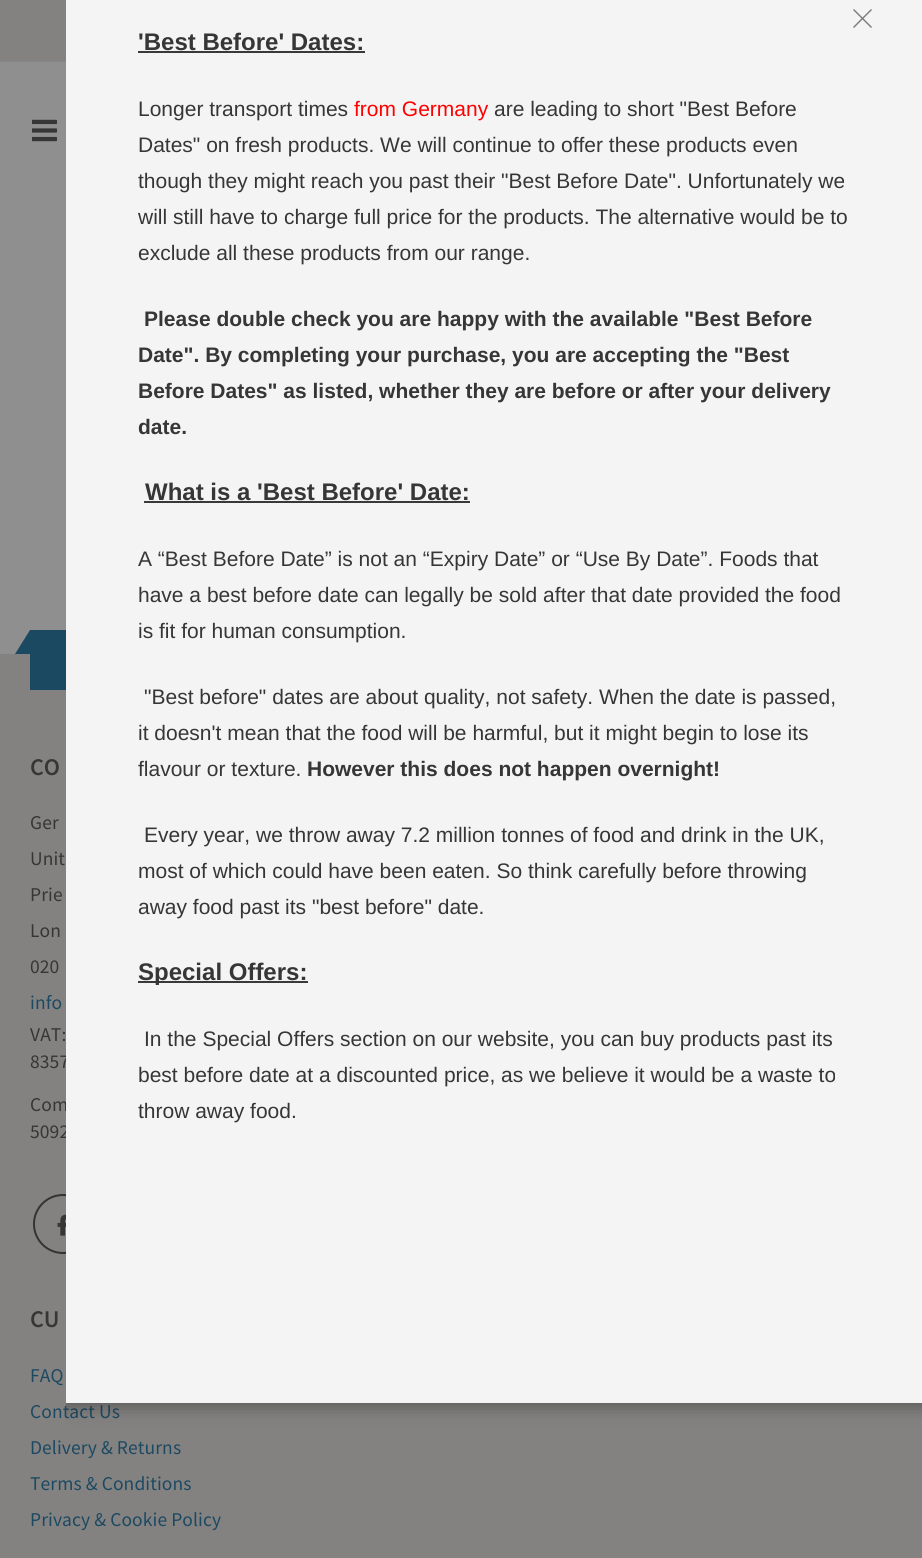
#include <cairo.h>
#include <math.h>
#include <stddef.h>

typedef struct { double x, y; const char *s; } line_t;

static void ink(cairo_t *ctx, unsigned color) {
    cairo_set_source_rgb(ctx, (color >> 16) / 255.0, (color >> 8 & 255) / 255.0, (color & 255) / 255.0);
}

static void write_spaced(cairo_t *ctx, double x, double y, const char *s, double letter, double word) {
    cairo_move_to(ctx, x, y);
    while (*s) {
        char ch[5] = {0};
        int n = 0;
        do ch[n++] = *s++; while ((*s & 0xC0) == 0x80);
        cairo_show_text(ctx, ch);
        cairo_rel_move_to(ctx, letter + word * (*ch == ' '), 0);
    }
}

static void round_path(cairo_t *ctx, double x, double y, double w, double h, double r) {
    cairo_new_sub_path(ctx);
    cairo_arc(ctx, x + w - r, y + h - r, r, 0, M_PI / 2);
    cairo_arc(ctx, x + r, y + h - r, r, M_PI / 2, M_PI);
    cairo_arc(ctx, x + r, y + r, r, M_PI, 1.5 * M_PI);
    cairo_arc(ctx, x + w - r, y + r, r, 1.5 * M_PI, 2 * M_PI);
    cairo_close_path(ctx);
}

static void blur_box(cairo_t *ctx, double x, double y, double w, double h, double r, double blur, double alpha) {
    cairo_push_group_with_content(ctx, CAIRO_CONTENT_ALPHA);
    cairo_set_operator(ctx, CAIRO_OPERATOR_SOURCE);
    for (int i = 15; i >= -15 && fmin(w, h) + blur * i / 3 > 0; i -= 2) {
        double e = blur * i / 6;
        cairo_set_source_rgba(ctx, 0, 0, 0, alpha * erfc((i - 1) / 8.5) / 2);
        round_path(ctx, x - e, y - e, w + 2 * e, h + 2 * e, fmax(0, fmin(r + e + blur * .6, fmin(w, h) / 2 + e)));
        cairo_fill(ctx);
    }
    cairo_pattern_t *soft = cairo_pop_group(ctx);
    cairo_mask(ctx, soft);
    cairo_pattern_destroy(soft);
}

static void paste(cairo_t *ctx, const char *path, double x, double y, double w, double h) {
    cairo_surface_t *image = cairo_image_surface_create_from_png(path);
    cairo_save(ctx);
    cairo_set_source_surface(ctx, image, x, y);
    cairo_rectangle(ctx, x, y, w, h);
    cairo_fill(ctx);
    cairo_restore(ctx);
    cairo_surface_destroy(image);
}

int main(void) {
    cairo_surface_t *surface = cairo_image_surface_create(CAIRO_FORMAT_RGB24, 922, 1558);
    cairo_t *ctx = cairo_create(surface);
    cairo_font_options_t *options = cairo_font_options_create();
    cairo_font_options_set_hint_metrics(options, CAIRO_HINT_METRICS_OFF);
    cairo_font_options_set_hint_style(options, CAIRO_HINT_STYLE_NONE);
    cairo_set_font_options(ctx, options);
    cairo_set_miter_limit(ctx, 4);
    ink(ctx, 0x8F8F8F);
    cairo_paint(ctx);
    ink(ctx, 0x848281);
    cairo_rectangle(ctx, 0, 0, 66, 60);
    cairo_fill(ctx);
    ink(ctx, 0x848484);
    cairo_rectangle(ctx, 0, 60, 66, 2);
    cairo_fill(ctx);
    paste(ctx, "media/1.png", 32, 119, 25, 23);
    ink(ctx, 0x848281);
    cairo_rectangle(ctx, 0, 654, 922, 904);
    cairo_fill(ctx);
    ink(ctx, 0x1C4962);
    cairo_rectangle(ctx, 30, 630, 36, 60);
    cairo_fill(ctx);
    cairo_new_path(ctx);
    cairo_move_to(ctx, 30, 630);
    cairo_line_to(ctx, 30, 654);
    cairo_line_to(ctx, 15, 654);
    cairo_close_path(ctx);
    cairo_fill(ctx);
    cairo_select_font_face(ctx, "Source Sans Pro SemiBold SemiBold", CAIRO_FONT_SLANT_NORMAL, CAIRO_FONT_WEIGHT_NORMAL);
    cairo_set_font_size(ctx, 24);
    ink(ctx, 0x363636);
    cairo_move_to(ctx, 30, 775);
    cairo_show_text(ctx, "CO");
    cairo_select_font_face(ctx, "Source Sans Pro", CAIRO_FONT_SLANT_NORMAL, CAIRO_FONT_WEIGHT_NORMAL);
    cairo_set_font_size(ctx, 19.5);
    {
        static const line_t items[] = {
            {30, 829, "Ger"},
            {30, 865, "Unit"},
            {30, 901, "Prie"},
            {30, 937, "Lon"},
            {30, 973, "020"},
        };
        for (size_t i = 0; i < sizeof items / sizeof *items; i++) {
            write_spaced(ctx, items[i].x, items[i].y, items[i].s, 0.1, 0);
        }
    }
    ink(ctx, 0x1C4962);
    write_spaced(ctx, 30, 1009, "info", 0.1, 0);
    ink(ctx, 0x363636);
    {
        static const line_t items[] = {
            {30, 1041, "VAT:"},
            {30, 1068, "8357"},
            {30, 1111, "Com"},
            {30, 1138, "5092"},
        };
        for (size_t i = 0; i < sizeof items / sizeof *items; i++) {
            write_spaced(ctx, items[i].x, items[i].y, items[i].s, 0.1, 0);
        }
    }
    cairo_new_path(ctx);
    cairo_arc(ctx, 63, 1224, 29, 0, 2 * M_PI);
    ink(ctx, 0x323335);
    cairo_stroke(ctx);
    paste(ctx, "media/2.png", 57, 1214, 9, 22);
    cairo_select_font_face(ctx, "Source Sans Pro SemiBold SemiBold", CAIRO_FONT_SLANT_NORMAL, CAIRO_FONT_WEIGHT_NORMAL);
    cairo_set_font_size(ctx, 24);
    ink(ctx, 0x363636);
    cairo_move_to(ctx, 30, 1327);
    cairo_show_text(ctx, "CU");
    cairo_select_font_face(ctx, "Source Sans Pro", CAIRO_FONT_SLANT_NORMAL, CAIRO_FONT_WEIGHT_NORMAL);
    cairo_set_font_size(ctx, 19.5);
    ink(ctx, 0x1C4962);
    {
        static const line_t items[] = {
            {30, 1382, "FAQ"},
            {30, 1418, "Contact Us"},
            {30, 1454, "Delivery & Returns"},
            {30, 1490, "Terms & Conditions"},
            {30, 1526, "Privacy & Cookie Policy"},
        };
        for (size_t i = 0; i < sizeof items / sizeof *items; i++) {
            write_spaced(ctx, items[i].x, items[i].y, items[i].s, 0.1, 0);
        }
    }
    cairo_save(ctx);
    cairo_rectangle(ctx, 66, 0, 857, 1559);
    cairo_clip(ctx);
    ink(ctx, 0x000000);
    blur_box(ctx, 63, -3, 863, 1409, 0, 9, 0.35);
    cairo_restore(ctx);
    ink(ctx, 0xF4F4F4);
    cairo_rectangle(ctx, 66, 0, 856, 1403);
    cairo_fill(ctx);
    ink(ctx, 0x7A7A7A);
    cairo_new_path(ctx);
    cairo_move_to(ctx, 854, 9);
    cairo_line_to(ctx, 872, 27);
    cairo_line_to(ctx, 871, 28);
    cairo_line_to(ctx, 853, 10);
    cairo_close_path(ctx);
    cairo_fill(ctx);
    cairo_new_path(ctx);
    cairo_move_to(ctx, 871, 9);
    cairo_line_to(ctx, 872, 10);
    cairo_line_to(ctx, 854, 28);
    cairo_line_to(ctx, 853, 27);
    cairo_close_path(ctx);
    cairo_fill(ctx);
    cairo_select_font_face(ctx, "Liberation Sans", CAIRO_FONT_SLANT_NORMAL, CAIRO_FONT_WEIGHT_BOLD);
    cairo_set_font_size(ctx, 24);
    ink(ctx, 0x363636);
    cairo_move_to(ctx, 138, 50);
    cairo_show_text(ctx, "'Best Before' Dates:");
    ink(ctx, 0x393939);
    cairo_rectangle(ctx, 138, 51, 227, 2);
    cairo_fill(ctx);
    cairo_select_font_face(ctx, "Liberation Sans", CAIRO_FONT_SLANT_NORMAL, CAIRO_FONT_WEIGHT_NORMAL);
    cairo_set_font_size(ctx, 21);
    ink(ctx, 0x363636);
    cairo_move_to(ctx, 138, 116);
    cairo_show_text(ctx, "Longer transport times");
    ink(ctx, 0xFF0000);
    cairo_move_to(ctx, 354, 116);
    cairo_show_text(ctx, "from Germany");
    ink(ctx, 0x363636);
    {
        static const line_t items[] = {
            {494, 116, "are leading to short \"Best Before"},
            {138, 152, "Dates\" on fresh products. We will continue to offer these products even"},
            {138, 188, "though they might reach you past their \"Best Before Date\". Unfortunately we"},
            {138, 224, "will still have to charge full price for the products. The alternative would be to"},
            {138, 260, "exclude all these products from our range."},
        };
        for (size_t i = 0; i < sizeof items / sizeof *items; i++) {
            cairo_move_to(ctx, items[i].x, items[i].y);
            cairo_show_text(ctx, items[i].s);
        }
    }
    cairo_select_font_face(ctx, "Liberation Sans", CAIRO_FONT_SLANT_NORMAL, CAIRO_FONT_WEIGHT_BOLD);
    {
        static const line_t items[] = {
            {144, 326, "Please double check you are happy with the available \"Best Before"},
            {138, 362, "Date\". By completing your purchase, you are accepting the \"Best"},
            {138, 398, "Before Dates\" as listed, whether they are before or after your delivery"},
            {138, 434, "date."},
        };
        for (size_t i = 0; i < sizeof items / sizeof *items; i++) {
            cairo_move_to(ctx, items[i].x, items[i].y);
            cairo_show_text(ctx, items[i].s);
        }
    }
    cairo_set_font_size(ctx, 24);
    cairo_move_to(ctx, 145, 500);
    cairo_show_text(ctx, "What is a 'Best Before' Date:");
    ink(ctx, 0x393939);
    cairo_rectangle(ctx, 144, 501, 326, 2);
    cairo_fill(ctx);
    cairo_select_font_face(ctx, "Liberation Sans", CAIRO_FONT_SLANT_NORMAL, CAIRO_FONT_WEIGHT_NORMAL);
    cairo_set_font_size(ctx, 21);
    ink(ctx, 0x363636);
    {
        static const line_t items[] = {
            {138, 566, "A “Best Before Date” is not an “Expiry Date” or “Use By Date”. Foods that"},
            {138, 602, "have a best before date can legally be sold after that date provided the food"},
            {138, 638, "is fit for human consumption."},
            {144, 704, "\"Best before\" dates are about quality, not safety. When the date is passed,"},
            {138, 740, "it doesn't mean that the food will be harmful, but it might begin to lose its"},
            {138, 776, "flavour or texture."},
        };
        for (size_t i = 0; i < sizeof items / sizeof *items; i++) {
            cairo_move_to(ctx, items[i].x, items[i].y);
            cairo_show_text(ctx, items[i].s);
        }
    }
    cairo_select_font_face(ctx, "Liberation Sans", CAIRO_FONT_SLANT_NORMAL, CAIRO_FONT_WEIGHT_BOLD);
    cairo_move_to(ctx, 307, 776);
    cairo_show_text(ctx, "However this does not happen overnight!");
    cairo_select_font_face(ctx, "Liberation Sans", CAIRO_FONT_SLANT_NORMAL, CAIRO_FONT_WEIGHT_NORMAL);
    {
        static const line_t items[] = {
            {144, 842, "Every year, we throw away 7.2 million tonnes of food and drink in the UK,"},
            {138, 878, "most of which could have been eaten. So think carefully before throwing"},
            {138, 914, "away food past its \"best before\" date."},
        };
        for (size_t i = 0; i < sizeof items / sizeof *items; i++) {
            cairo_move_to(ctx, items[i].x, items[i].y);
            cairo_show_text(ctx, items[i].s);
        }
    }
    ink(ctx, 0x393939);
    cairo_rectangle(ctx, 138, 981, 170, 2);
    cairo_fill(ctx);
    cairo_select_font_face(ctx, "Liberation Sans", CAIRO_FONT_SLANT_NORMAL, CAIRO_FONT_WEIGHT_BOLD);
    cairo_set_font_size(ctx, 24);
    ink(ctx, 0x363636);
    cairo_move_to(ctx, 138, 980);
    cairo_show_text(ctx, "Special Offers:");
    cairo_select_font_face(ctx, "Liberation Sans", CAIRO_FONT_SLANT_NORMAL, CAIRO_FONT_WEIGHT_NORMAL);
    cairo_set_font_size(ctx, 21);
    {
        static const line_t items[] = {
            {144, 1046, "In the Special Offers section on our website, you can buy products past its"},
            {138, 1082, "best before date at a discounted price, as we believe it would be a waste to"},
            {138, 1118, "throw away food."},
        };
        for (size_t i = 0; i < sizeof items / sizeof *items; i++) {
            cairo_move_to(ctx, items[i].x, items[i].y);
            cairo_show_text(ctx, items[i].s);
        }
    }
    cairo_surface_write_to_png(surface, "image.png");
    cairo_font_options_destroy(options);
    cairo_destroy(ctx);
    cairo_surface_destroy(surface);
    return 0;
}
